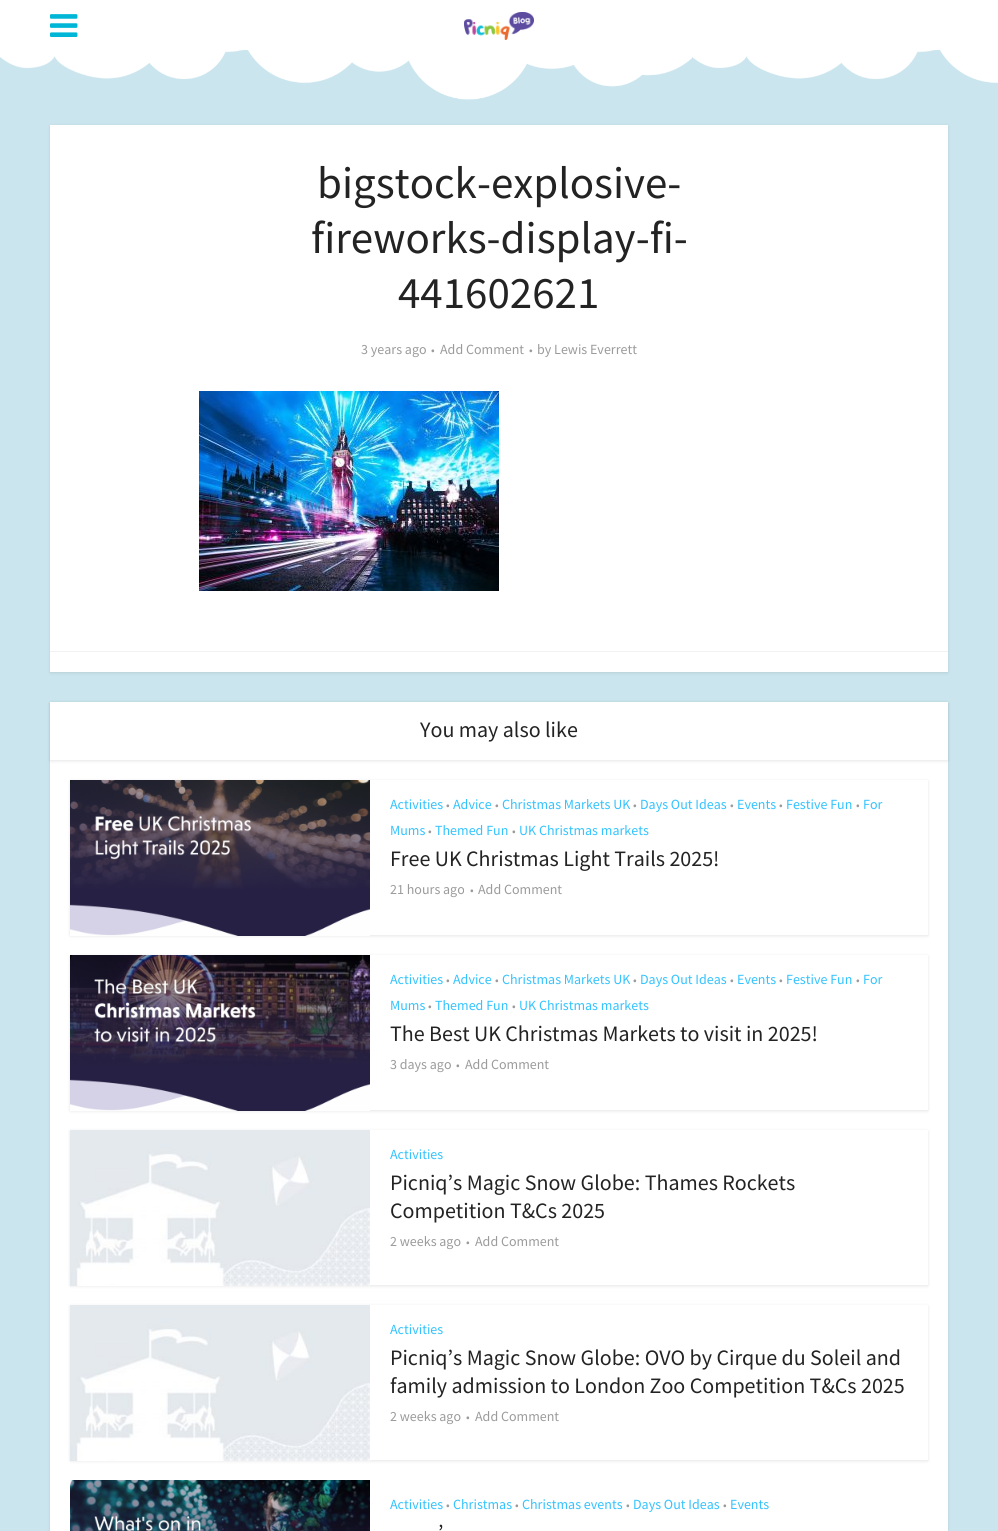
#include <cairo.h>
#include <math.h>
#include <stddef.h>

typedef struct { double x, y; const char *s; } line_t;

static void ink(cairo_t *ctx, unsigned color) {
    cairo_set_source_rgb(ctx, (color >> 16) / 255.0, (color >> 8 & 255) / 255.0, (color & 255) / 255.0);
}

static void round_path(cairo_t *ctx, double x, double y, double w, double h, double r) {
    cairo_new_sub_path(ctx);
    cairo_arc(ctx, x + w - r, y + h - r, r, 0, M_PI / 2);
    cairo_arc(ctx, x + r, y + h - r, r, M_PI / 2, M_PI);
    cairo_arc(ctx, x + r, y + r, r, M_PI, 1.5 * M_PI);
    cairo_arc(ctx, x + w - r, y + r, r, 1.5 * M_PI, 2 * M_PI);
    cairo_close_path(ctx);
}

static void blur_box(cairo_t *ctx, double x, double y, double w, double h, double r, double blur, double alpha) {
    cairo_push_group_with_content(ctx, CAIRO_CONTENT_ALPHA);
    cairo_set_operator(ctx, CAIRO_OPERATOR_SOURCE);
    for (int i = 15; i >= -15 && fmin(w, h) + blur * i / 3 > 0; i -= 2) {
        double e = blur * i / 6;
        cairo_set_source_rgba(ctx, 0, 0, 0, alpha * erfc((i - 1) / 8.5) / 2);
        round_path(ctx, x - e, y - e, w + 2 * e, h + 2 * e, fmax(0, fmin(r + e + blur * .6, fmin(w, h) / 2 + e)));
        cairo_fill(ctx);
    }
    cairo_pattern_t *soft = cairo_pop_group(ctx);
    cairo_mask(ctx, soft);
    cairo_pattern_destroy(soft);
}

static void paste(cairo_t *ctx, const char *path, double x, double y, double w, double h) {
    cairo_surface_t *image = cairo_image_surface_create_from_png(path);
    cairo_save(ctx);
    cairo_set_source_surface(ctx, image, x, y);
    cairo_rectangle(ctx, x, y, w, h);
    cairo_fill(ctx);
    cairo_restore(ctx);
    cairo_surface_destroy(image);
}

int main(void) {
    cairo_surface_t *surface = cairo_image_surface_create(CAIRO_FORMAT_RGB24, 998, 1531);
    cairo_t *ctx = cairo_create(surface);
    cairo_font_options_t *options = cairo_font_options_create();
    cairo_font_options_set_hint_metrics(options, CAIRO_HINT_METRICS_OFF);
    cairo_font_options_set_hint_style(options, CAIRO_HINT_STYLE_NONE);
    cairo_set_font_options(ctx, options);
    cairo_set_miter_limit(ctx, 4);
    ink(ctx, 0xCBE5EE);
    cairo_paint(ctx);
    ink(ctx, 0xFFFFFF);
    cairo_rectangle(ctx, 0, 0, 998, 50);
    cairo_fill(ctx);
    paste(ctx, "media/1.png", 50, 14, 28, 23);
    paste(ctx, "media/2.png", 464, 12, 70, 28);
    paste(ctx, "media/3.png", 0, 50, 998, 50);
    ink(ctx, 0x000000);
    blur_box(ctx, 50, 126, 898, 547, 0, 1.5, 0.1);
    ink(ctx, 0xFFFFFF);
    cairo_rectangle(ctx, 50, 125, 898, 547);
    cairo_fill(ctx);
    cairo_select_font_face(ctx, "Source Sans Pro", CAIRO_FONT_SLANT_NORMAL, CAIRO_FONT_WEIGHT_NORMAL);
    cairo_set_font_size(ctx, 45);
    ink(ctx, 0x232323);
    {
        static const line_t items[] = {
            {317, 198, "bigstock-explosive-"},
            {311, 253, "fireworks-display-fi-"},
            {398, 308, "441602621"},
        };
        for (size_t i = 0; i < sizeof items / sizeof *items; i++) {
            cairo_move_to(ctx, items[i].x, items[i].y);
            cairo_show_text(ctx, items[i].s);
        }
    }
    cairo_set_font_size(ctx, 14);
    ink(ctx, 0x9B9B9B);
    cairo_move_to(ctx, 361, 354);
    cairo_show_text(ctx, "3 years ago");
    cairo_set_font_size(ctx, 12);
    cairo_move_to(ctx, 431, 354);
    cairo_show_text(ctx, "•");
    cairo_set_font_size(ctx, 14);
    cairo_move_to(ctx, 440, 354);
    cairo_show_text(ctx, "Add Comment");
    cairo_set_font_size(ctx, 12);
    cairo_move_to(ctx, 529, 354);
    cairo_show_text(ctx, "•");
    cairo_set_font_size(ctx, 14);
    cairo_move_to(ctx, 537, 354);
    cairo_show_text(ctx, "by Lewis Everrett");
    paste(ctx, "media/4.png", 199, 391, 300, 200);
    ink(ctx, 0xF2F2F2);
    cairo_rectangle(ctx, 50, 651, 898, 1);
    cairo_fill(ctx);
    ink(ctx, 0x000000);
    blur_box(ctx, 50, 703, 898, 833, 0, 1.5, 0.1);
    ink(ctx, 0xFFFFFF);
    cairo_rectangle(ctx, 50, 702, 898, 829);
    cairo_fill(ctx);
    cairo_save(ctx);
    cairo_set_fill_rule(ctx, CAIRO_FILL_RULE_EVEN_ODD);
    cairo_new_path(ctx);
    cairo_move_to(ctx, 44, 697);
    cairo_line_to(ctx, 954, 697);
    cairo_line_to(ctx, 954, 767);
    cairo_line_to(ctx, 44, 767);
    cairo_close_path(ctx);
    cairo_move_to(ctx, 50, 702);
    cairo_line_to(ctx, 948, 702);
    cairo_line_to(ctx, 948, 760);
    cairo_line_to(ctx, 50, 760);
    cairo_close_path(ctx);
    cairo_clip(ctx);
    ink(ctx, 0x000000);
    blur_box(ctx, 50, 703, 898, 58, 0, 1.5, 0.1);
    cairo_restore(ctx);
    cairo_set_font_size(ctx, 22);
    ink(ctx, 0x232323);
    cairo_move_to(ctx, 420, 737);
    cairo_show_text(ctx, "You may also like");
    cairo_save(ctx);
    cairo_set_fill_rule(ctx, CAIRO_FILL_RULE_EVEN_ODD);
    cairo_new_path(ctx);
    cairo_move_to(ctx, 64, 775);
    cairo_line_to(ctx, 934, 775);
    cairo_line_to(ctx, 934, 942);
    cairo_line_to(ctx, 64, 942);
    cairo_close_path(ctx);
    cairo_move_to(ctx, 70, 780);
    cairo_line_to(ctx, 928, 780);
    cairo_line_to(ctx, 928, 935);
    cairo_line_to(ctx, 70, 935);
    cairo_close_path(ctx);
    cairo_clip(ctx);
    ink(ctx, 0x000000);
    blur_box(ctx, 70, 781, 858, 155, 0, 1.5, 0.1);
    cairo_restore(ctx);
    paste(ctx, "media/5.png", 70, 780, 300, 156);
    cairo_set_font_size(ctx, 14);
    ink(ctx, 0x33C3FF);
    cairo_move_to(ctx, 390, 809);
    cairo_show_text(ctx, "Activities");
    cairo_set_font_size(ctx, 12);
    ink(ctx, 0x9B9B9B);
    cairo_move_to(ctx, 446, 809);
    cairo_show_text(ctx, "•");
    cairo_set_font_size(ctx, 14);
    ink(ctx, 0x33C3FF);
    cairo_move_to(ctx, 453, 809);
    cairo_show_text(ctx, "Advice");
    cairo_set_font_size(ctx, 12);
    ink(ctx, 0x9B9B9B);
    cairo_move_to(ctx, 495, 809);
    cairo_show_text(ctx, "•");
    cairo_set_font_size(ctx, 14);
    ink(ctx, 0x33C3FF);
    cairo_move_to(ctx, 502, 809);
    cairo_show_text(ctx, "Christmas Markets UK");
    cairo_set_font_size(ctx, 12);
    ink(ctx, 0x9B9B9B);
    cairo_move_to(ctx, 633, 809);
    cairo_show_text(ctx, "•");
    cairo_set_font_size(ctx, 14);
    ink(ctx, 0x33C3FF);
    cairo_move_to(ctx, 640, 809);
    cairo_show_text(ctx, "Days Out Ideas");
    cairo_set_font_size(ctx, 12);
    ink(ctx, 0x9B9B9B);
    cairo_move_to(ctx, 730, 809);
    cairo_show_text(ctx, "•");
    cairo_set_font_size(ctx, 14);
    ink(ctx, 0x33C3FF);
    cairo_move_to(ctx, 737, 809);
    cairo_show_text(ctx, "Events");
    cairo_set_font_size(ctx, 12);
    ink(ctx, 0x9B9B9B);
    cairo_move_to(ctx, 779, 809);
    cairo_show_text(ctx, "•");
    cairo_set_font_size(ctx, 14);
    ink(ctx, 0x33C3FF);
    cairo_move_to(ctx, 786, 809);
    cairo_show_text(ctx, "Festive Fun");
    cairo_set_font_size(ctx, 12);
    ink(ctx, 0x9B9B9B);
    cairo_move_to(ctx, 856, 809);
    cairo_show_text(ctx, "•");
    cairo_set_font_size(ctx, 14);
    ink(ctx, 0x33C3FF);
    cairo_move_to(ctx, 863, 809);
    cairo_show_text(ctx, "For");
    cairo_move_to(ctx, 390, 835);
    cairo_show_text(ctx, "Mums");
    cairo_set_font_size(ctx, 12);
    ink(ctx, 0x9B9B9B);
    cairo_move_to(ctx, 428, 835);
    cairo_show_text(ctx, "•");
    cairo_set_font_size(ctx, 14);
    ink(ctx, 0x33C3FF);
    cairo_move_to(ctx, 435, 835);
    cairo_show_text(ctx, "Themed Fun");
    cairo_set_font_size(ctx, 12);
    ink(ctx, 0x9B9B9B);
    cairo_move_to(ctx, 512, 835);
    cairo_show_text(ctx, "•");
    cairo_set_font_size(ctx, 14);
    ink(ctx, 0x33C3FF);
    cairo_move_to(ctx, 519, 835);
    cairo_show_text(ctx, "UK Christmas markets");
    cairo_set_font_size(ctx, 22);
    ink(ctx, 0x232323);
    cairo_move_to(ctx, 390, 866);
    cairo_show_text(ctx, "Free UK Christmas Light Trails 2025!");
    cairo_set_font_size(ctx, 14);
    ink(ctx, 0x9B9B9B);
    cairo_move_to(ctx, 390, 894);
    cairo_show_text(ctx, "21 hours ago");
    cairo_set_font_size(ctx, 12);
    cairo_move_to(ctx, 470, 894);
    cairo_show_text(ctx, "•");
    cairo_set_font_size(ctx, 14);
    cairo_move_to(ctx, 478, 894);
    cairo_show_text(ctx, "Add Comment");
    cairo_save(ctx);
    cairo_set_fill_rule(ctx, CAIRO_FILL_RULE_EVEN_ODD);
    cairo_new_path(ctx);
    cairo_move_to(ctx, 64, 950);
    cairo_line_to(ctx, 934, 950);
    cairo_line_to(ctx, 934, 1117);
    cairo_line_to(ctx, 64, 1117);
    cairo_close_path(ctx);
    cairo_move_to(ctx, 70, 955);
    cairo_line_to(ctx, 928, 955);
    cairo_line_to(ctx, 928, 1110);
    cairo_line_to(ctx, 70, 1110);
    cairo_close_path(ctx);
    cairo_clip(ctx);
    ink(ctx, 0x000000);
    blur_box(ctx, 70, 956, 858, 155, 0, 1.5, 0.1);
    cairo_restore(ctx);
    paste(ctx, "media/6.png", 70, 955, 300, 156);
    ink(ctx, 0x33C3FF);
    cairo_move_to(ctx, 390, 984);
    cairo_show_text(ctx, "Activities");
    cairo_set_font_size(ctx, 12);
    ink(ctx, 0x9B9B9B);
    cairo_move_to(ctx, 446, 984);
    cairo_show_text(ctx, "•");
    cairo_set_font_size(ctx, 14);
    ink(ctx, 0x33C3FF);
    cairo_move_to(ctx, 453, 984);
    cairo_show_text(ctx, "Advice");
    cairo_set_font_size(ctx, 12);
    ink(ctx, 0x9B9B9B);
    cairo_move_to(ctx, 495, 984);
    cairo_show_text(ctx, "•");
    cairo_set_font_size(ctx, 14);
    ink(ctx, 0x33C3FF);
    cairo_move_to(ctx, 502, 984);
    cairo_show_text(ctx, "Christmas Markets UK");
    cairo_set_font_size(ctx, 12);
    ink(ctx, 0x9B9B9B);
    cairo_move_to(ctx, 633, 984);
    cairo_show_text(ctx, "•");
    cairo_set_font_size(ctx, 14);
    ink(ctx, 0x33C3FF);
    cairo_move_to(ctx, 640, 984);
    cairo_show_text(ctx, "Days Out Ideas");
    cairo_set_font_size(ctx, 12);
    ink(ctx, 0x9B9B9B);
    cairo_move_to(ctx, 730, 984);
    cairo_show_text(ctx, "•");
    cairo_set_font_size(ctx, 14);
    ink(ctx, 0x33C3FF);
    cairo_move_to(ctx, 737, 984);
    cairo_show_text(ctx, "Events");
    cairo_set_font_size(ctx, 12);
    ink(ctx, 0x9B9B9B);
    cairo_move_to(ctx, 779, 984);
    cairo_show_text(ctx, "•");
    cairo_set_font_size(ctx, 14);
    ink(ctx, 0x33C3FF);
    cairo_move_to(ctx, 786, 984);
    cairo_show_text(ctx, "Festive Fun");
    cairo_set_font_size(ctx, 12);
    ink(ctx, 0x9B9B9B);
    cairo_move_to(ctx, 856, 984);
    cairo_show_text(ctx, "•");
    cairo_set_font_size(ctx, 14);
    ink(ctx, 0x33C3FF);
    cairo_move_to(ctx, 863, 984);
    cairo_show_text(ctx, "For");
    cairo_move_to(ctx, 390, 1010);
    cairo_show_text(ctx, "Mums");
    cairo_set_font_size(ctx, 12);
    ink(ctx, 0x9B9B9B);
    cairo_move_to(ctx, 428, 1010);
    cairo_show_text(ctx, "•");
    cairo_set_font_size(ctx, 14);
    ink(ctx, 0x33C3FF);
    cairo_move_to(ctx, 435, 1010);
    cairo_show_text(ctx, "Themed Fun");
    cairo_set_font_size(ctx, 12);
    ink(ctx, 0x9B9B9B);
    cairo_move_to(ctx, 512, 1010);
    cairo_show_text(ctx, "•");
    cairo_set_font_size(ctx, 14);
    ink(ctx, 0x33C3FF);
    cairo_move_to(ctx, 519, 1010);
    cairo_show_text(ctx, "UK Christmas markets");
    cairo_set_font_size(ctx, 22);
    ink(ctx, 0x232323);
    cairo_move_to(ctx, 390, 1041);
    cairo_show_text(ctx, "The Best UK Christmas Markets to visit in 2025!");
    cairo_set_font_size(ctx, 14);
    ink(ctx, 0x9B9B9B);
    cairo_move_to(ctx, 390, 1069);
    cairo_show_text(ctx, "3 days ago");
    cairo_set_font_size(ctx, 12);
    cairo_move_to(ctx, 456, 1069);
    cairo_show_text(ctx, "•");
    cairo_set_font_size(ctx, 14);
    cairo_move_to(ctx, 465, 1069);
    cairo_show_text(ctx, "Add Comment");
    cairo_save(ctx);
    cairo_set_fill_rule(ctx, CAIRO_FILL_RULE_EVEN_ODD);
    cairo_new_path(ctx);
    cairo_move_to(ctx, 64, 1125);
    cairo_line_to(ctx, 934, 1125);
    cairo_line_to(ctx, 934, 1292);
    cairo_line_to(ctx, 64, 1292);
    cairo_close_path(ctx);
    cairo_move_to(ctx, 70, 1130);
    cairo_line_to(ctx, 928, 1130);
    cairo_line_to(ctx, 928, 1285);
    cairo_line_to(ctx, 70, 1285);
    cairo_close_path(ctx);
    cairo_clip(ctx);
    ink(ctx, 0x000000);
    blur_box(ctx, 70, 1131, 858, 155, 0, 1.5, 0.1);
    cairo_restore(ctx);
    paste(ctx, "media/7.png", 70, 1130, 300, 156);
    ink(ctx, 0x33C3FF);
    cairo_move_to(ctx, 390, 1159);
    cairo_show_text(ctx, "Activities");
    cairo_set_font_size(ctx, 22);
    ink(ctx, 0x232323);
    cairo_move_to(ctx, 390, 1190);
    cairo_show_text(ctx, "Picniq’s Magic Snow Globe: Thames Rockets");
    cairo_move_to(ctx, 390, 1218);
    cairo_show_text(ctx, "Competition T&Cs 2025");
    cairo_set_font_size(ctx, 14);
    ink(ctx, 0x9B9B9B);
    cairo_move_to(ctx, 390, 1246);
    cairo_show_text(ctx, "2 weeks ago");
    cairo_set_font_size(ctx, 12);
    cairo_move_to(ctx, 466, 1246);
    cairo_show_text(ctx, "•");
    cairo_set_font_size(ctx, 14);
    cairo_move_to(ctx, 475, 1246);
    cairo_show_text(ctx, "Add Comment");
    cairo_save(ctx);
    cairo_set_fill_rule(ctx, CAIRO_FILL_RULE_EVEN_ODD);
    cairo_new_path(ctx);
    cairo_move_to(ctx, 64, 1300);
    cairo_line_to(ctx, 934, 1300);
    cairo_line_to(ctx, 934, 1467);
    cairo_line_to(ctx, 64, 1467);
    cairo_close_path(ctx);
    cairo_move_to(ctx, 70, 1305);
    cairo_line_to(ctx, 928, 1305);
    cairo_line_to(ctx, 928, 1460);
    cairo_line_to(ctx, 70, 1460);
    cairo_close_path(ctx);
    cairo_clip(ctx);
    ink(ctx, 0x000000);
    blur_box(ctx, 70, 1306, 858, 155, 0, 1.5, 0.1);
    cairo_restore(ctx);
    paste(ctx, "media/7.png", 70, 1305, 300, 156);
    ink(ctx, 0x33C3FF);
    cairo_move_to(ctx, 390, 1334);
    cairo_show_text(ctx, "Activities");
    cairo_set_font_size(ctx, 22);
    ink(ctx, 0x232323);
    cairo_move_to(ctx, 390, 1365);
    cairo_show_text(ctx, "Picniq’s Magic Snow Globe: OVO by Cirque du Soleil and");
    cairo_move_to(ctx, 390, 1393);
    cairo_show_text(ctx, "family admission to London Zoo Competition T&Cs 2025");
    cairo_set_font_size(ctx, 14);
    ink(ctx, 0x9B9B9B);
    cairo_move_to(ctx, 390, 1421);
    cairo_show_text(ctx, "2 weeks ago");
    cairo_set_font_size(ctx, 12);
    cairo_move_to(ctx, 466, 1421);
    cairo_show_text(ctx, "•");
    cairo_set_font_size(ctx, 14);
    cairo_move_to(ctx, 475, 1421);
    cairo_show_text(ctx, "Add Comment");
    paste(ctx, "media/8.png", 70, 1480, 300, 51);
    ink(ctx, 0x33C3FF);
    cairo_move_to(ctx, 390, 1509);
    cairo_show_text(ctx, "Activities");
    cairo_set_font_size(ctx, 12);
    ink(ctx, 0x9B9B9B);
    cairo_move_to(ctx, 446, 1509);
    cairo_show_text(ctx, "•");
    cairo_set_font_size(ctx, 14);
    ink(ctx, 0x33C3FF);
    cairo_move_to(ctx, 453, 1509);
    cairo_show_text(ctx, "Christmas");
    cairo_set_font_size(ctx, 12);
    ink(ctx, 0x9B9B9B);
    cairo_move_to(ctx, 515, 1509);
    cairo_show_text(ctx, "•");
    cairo_set_font_size(ctx, 14);
    ink(ctx, 0x33C3FF);
    cairo_move_to(ctx, 522, 1509);
    cairo_show_text(ctx, "Christmas events");
    cairo_set_font_size(ctx, 12);
    ink(ctx, 0x9B9B9B);
    cairo_move_to(ctx, 626, 1509);
    cairo_show_text(ctx, "•");
    cairo_set_font_size(ctx, 14);
    ink(ctx, 0x33C3FF);
    cairo_move_to(ctx, 633, 1509);
    cairo_show_text(ctx, "Days Out Ideas");
    cairo_set_font_size(ctx, 12);
    ink(ctx, 0x9B9B9B);
    cairo_move_to(ctx, 723, 1509);
    cairo_show_text(ctx, "•");
    cairo_set_font_size(ctx, 14);
    ink(ctx, 0x33C3FF);
    cairo_move_to(ctx, 730, 1509);
    cairo_show_text(ctx, "Events");
    cairo_set_font_size(ctx, 22);
    ink(ctx, 0x232323);
    cairo_move_to(ctx, 438, 1540);
    cairo_show_text(ctx, "’");
    cairo_surface_write_to_png(surface, "image.png");
    cairo_font_options_destroy(options);
    cairo_destroy(ctx);
    cairo_surface_destroy(surface);
    return 0;
}
